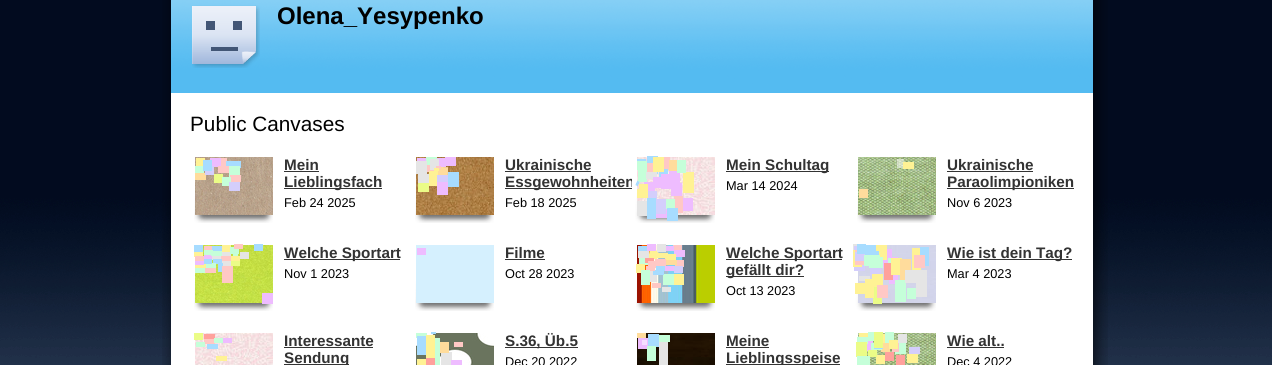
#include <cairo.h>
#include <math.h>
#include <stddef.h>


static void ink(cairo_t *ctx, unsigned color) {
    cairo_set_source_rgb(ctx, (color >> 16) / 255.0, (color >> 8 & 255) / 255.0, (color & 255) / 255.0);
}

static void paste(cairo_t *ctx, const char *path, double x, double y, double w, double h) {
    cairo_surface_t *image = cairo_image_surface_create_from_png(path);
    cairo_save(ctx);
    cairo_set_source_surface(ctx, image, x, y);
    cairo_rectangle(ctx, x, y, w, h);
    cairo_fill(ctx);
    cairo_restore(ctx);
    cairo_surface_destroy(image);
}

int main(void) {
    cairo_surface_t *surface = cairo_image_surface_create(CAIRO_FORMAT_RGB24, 1272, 365);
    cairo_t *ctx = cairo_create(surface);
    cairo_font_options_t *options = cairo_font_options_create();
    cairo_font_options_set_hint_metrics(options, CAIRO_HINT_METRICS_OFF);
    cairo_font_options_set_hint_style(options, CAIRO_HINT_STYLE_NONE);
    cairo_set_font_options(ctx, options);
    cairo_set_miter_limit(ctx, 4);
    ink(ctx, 0xFFFFFF);
    cairo_paint(ctx);
    paste(ctx, "media/1.png", 0, 0, 1272, 365);
    paste(ctx, "media/2.png", 162, 0, 946, 365);
    paste(ctx, "media/3.png", 171, 0, 922, 93);
    paste(ctx, "media/4.png", 192, 5, 68, 63);
    cairo_select_font_face(ctx, "Liberation Sans", CAIRO_FONT_SLANT_NORMAL, CAIRO_FONT_WEIGHT_BOLD);
    cairo_set_font_size(ctx, 24);
    ink(ctx, 0x000000);
    cairo_move_to(ctx, 277, 24);
    cairo_show_text(ctx, "Olena_Yesypenko");
    cairo_select_font_face(ctx, "Liberation Sans", CAIRO_FONT_SLANT_NORMAL, CAIRO_FONT_WEIGHT_NORMAL);
    cairo_set_font_size(ctx, 20.75);
    cairo_move_to(ctx, 190, 131);
    cairo_show_text(ctx, "Public Canvases");
    paste(ctx, "media/5.png", 194, 157, 79, 66);
    cairo_select_font_face(ctx, "Liberation Sans", CAIRO_FONT_SLANT_NORMAL, CAIRO_FONT_WEIGHT_BOLD);
    cairo_set_font_size(ctx, 15.25);
    ink(ctx, 0x333333);
    cairo_move_to(ctx, 284, 170);
    cairo_show_text(ctx, "Mein");
    cairo_rectangle(ctx, 284, 171, 35, 1);
    cairo_fill(ctx);
    cairo_rectangle(ctx, 284, 188, 98, 1);
    cairo_fill(ctx);
    cairo_move_to(ctx, 284, 187);
    cairo_show_text(ctx, "Lieblingsfach");
    cairo_select_font_face(ctx, "Liberation Sans", CAIRO_FONT_SLANT_NORMAL, CAIRO_FONT_WEIGHT_NORMAL);
    cairo_set_font_size(ctx, 12.75);
    ink(ctx, 0x000000);
    cairo_move_to(ctx, 284, 207);
    cairo_show_text(ctx, "Feb 24 2025");
    paste(ctx, "media/6.png", 415, 157, 79, 66);
    cairo_select_font_face(ctx, "Liberation Sans", CAIRO_FONT_SLANT_NORMAL, CAIRO_FONT_WEIGHT_BOLD);
    cairo_set_font_size(ctx, 15.25);
    ink(ctx, 0x333333);
    cairo_move_to(ctx, 505, 170);
    cairo_show_text(ctx, "Ukrainische");
    cairo_rectangle(ctx, 505, 171, 86, 1);
    cairo_fill(ctx);
    cairo_rectangle(ctx, 505, 188, 127, 1);
    cairo_fill(ctx);
    cairo_save(ctx);
    cairo_rectangle(ctx, 411, 156, 221, 88);
    cairo_clip(ctx);
    cairo_move_to(ctx, 505, 187);
    cairo_show_text(ctx, "Essgewohnheiten");
    cairo_restore(ctx);
    cairo_select_font_face(ctx, "Liberation Sans", CAIRO_FONT_SLANT_NORMAL, CAIRO_FONT_WEIGHT_NORMAL);
    cairo_set_font_size(ctx, 12.75);
    ink(ctx, 0x000000);
    cairo_move_to(ctx, 505, 207);
    cairo_show_text(ctx, "Feb 18 2025");
    paste(ctx, "media/7.png", 635, 156, 80, 67);
    ink(ctx, 0x333333);
    cairo_rectangle(ctx, 726, 171, 103, 1);
    cairo_fill(ctx);
    cairo_select_font_face(ctx, "Liberation Sans", CAIRO_FONT_SLANT_NORMAL, CAIRO_FONT_WEIGHT_BOLD);
    cairo_set_font_size(ctx, 15.25);
    cairo_move_to(ctx, 726, 170);
    cairo_show_text(ctx, "Mein Schultag");
    cairo_select_font_face(ctx, "Liberation Sans", CAIRO_FONT_SLANT_NORMAL, CAIRO_FONT_WEIGHT_NORMAL);
    cairo_set_font_size(ctx, 12.75);
    ink(ctx, 0x000000);
    cairo_move_to(ctx, 726, 190);
    cairo_show_text(ctx, "Mar 14 2024");
    paste(ctx, "media/8.png", 857, 157, 79, 66);
    cairo_select_font_face(ctx, "Liberation Sans", CAIRO_FONT_SLANT_NORMAL, CAIRO_FONT_WEIGHT_BOLD);
    cairo_set_font_size(ctx, 15.25);
    ink(ctx, 0x333333);
    cairo_move_to(ctx, 947, 170);
    cairo_show_text(ctx, "Ukrainische");
    cairo_rectangle(ctx, 947, 171, 86, 1);
    cairo_fill(ctx);
    cairo_rectangle(ctx, 947, 188, 127, 1);
    cairo_fill(ctx);
    cairo_move_to(ctx, 947, 187);
    cairo_show_text(ctx, "Paraolimpioniken");
    cairo_select_font_face(ctx, "Liberation Sans", CAIRO_FONT_SLANT_NORMAL, CAIRO_FONT_WEIGHT_NORMAL);
    cairo_set_font_size(ctx, 12.75);
    ink(ctx, 0x000000);
    cairo_move_to(ctx, 947, 207);
    cairo_show_text(ctx, "Nov 6 2023");
    paste(ctx, "media/9.png", 194, 244, 79, 67);
    ink(ctx, 0x333333);
    cairo_rectangle(ctx, 284, 259, 116, 1);
    cairo_fill(ctx);
    cairo_select_font_face(ctx, "Liberation Sans", CAIRO_FONT_SLANT_NORMAL, CAIRO_FONT_WEIGHT_BOLD);
    cairo_set_font_size(ctx, 15.25);
    cairo_move_to(ctx, 284, 258);
    cairo_show_text(ctx, "Welche Sportart");
    cairo_select_font_face(ctx, "Liberation Sans", CAIRO_FONT_SLANT_NORMAL, CAIRO_FONT_WEIGHT_NORMAL);
    cairo_set_font_size(ctx, 12.75);
    ink(ctx, 0x000000);
    cairo_move_to(ctx, 284, 278);
    cairo_show_text(ctx, "Nov 1 2023");
    paste(ctx, "media/10.png", 415, 245, 79, 66);
    cairo_select_font_face(ctx, "Liberation Sans", CAIRO_FONT_SLANT_NORMAL, CAIRO_FONT_WEIGHT_BOLD);
    cairo_set_font_size(ctx, 15.25);
    ink(ctx, 0x333333);
    cairo_move_to(ctx, 505, 258);
    cairo_show_text(ctx, "Filme");
    cairo_rectangle(ctx, 505, 259, 40, 1);
    cairo_fill(ctx);
    cairo_select_font_face(ctx, "Liberation Sans", CAIRO_FONT_SLANT_NORMAL, CAIRO_FONT_WEIGHT_NORMAL);
    cairo_set_font_size(ctx, 12.75);
    ink(ctx, 0x000000);
    cairo_move_to(ctx, 505, 278);
    cairo_show_text(ctx, "Oct 28 2023");
    paste(ctx, "media/11.png", 636, 244, 79, 67);
    ink(ctx, 0x333333);
    cairo_rectangle(ctx, 726, 259, 116, 1);
    cairo_fill(ctx);
    cairo_select_font_face(ctx, "Liberation Sans", CAIRO_FONT_SLANT_NORMAL, CAIRO_FONT_WEIGHT_BOLD);
    cairo_set_font_size(ctx, 15.25);
    cairo_move_to(ctx, 726, 258);
    cairo_show_text(ctx, "Welche Sportart");
    cairo_rectangle(ctx, 726, 276, 78, 1);
    cairo_fill(ctx);
    cairo_move_to(ctx, 726, 275);
    cairo_show_text(ctx, "gefällt dir?");
    cairo_select_font_face(ctx, "Liberation Sans", CAIRO_FONT_SLANT_NORMAL, CAIRO_FONT_WEIGHT_NORMAL);
    cairo_set_font_size(ctx, 12.75);
    ink(ctx, 0x000000);
    cairo_move_to(ctx, 726, 295);
    cairo_show_text(ctx, "Oct 13 2023");
    paste(ctx, "media/12.png", 853, 244, 83, 67);
    ink(ctx, 0x333333);
    cairo_rectangle(ctx, 947, 259, 125, 1);
    cairo_fill(ctx);
    cairo_select_font_face(ctx, "Liberation Sans", CAIRO_FONT_SLANT_NORMAL, CAIRO_FONT_WEIGHT_BOLD);
    cairo_set_font_size(ctx, 15.25);
    cairo_move_to(ctx, 947, 258);
    cairo_show_text(ctx, "Wie ist dein Tag?");
    cairo_select_font_face(ctx, "Liberation Sans", CAIRO_FONT_SLANT_NORMAL, CAIRO_FONT_WEIGHT_NORMAL);
    cairo_set_font_size(ctx, 12.75);
    ink(ctx, 0x000000);
    cairo_move_to(ctx, 947, 278);
    cairo_show_text(ctx, "Mar 4 2023");
    paste(ctx, "media/13.png", 194, 333, 79, 32);
    cairo_select_font_face(ctx, "Liberation Sans", CAIRO_FONT_SLANT_NORMAL, CAIRO_FONT_WEIGHT_BOLD);
    cairo_set_font_size(ctx, 15.25);
    ink(ctx, 0x333333);
    cairo_move_to(ctx, 284, 346);
    cairo_show_text(ctx, "Interessante");
    cairo_rectangle(ctx, 284, 347, 89, 1);
    cairo_fill(ctx);
    cairo_rectangle(ctx, 284, 364, 65, 1);
    cairo_fill(ctx);
    cairo_move_to(ctx, 284, 363);
    cairo_show_text(ctx, "Sendung");
    paste(ctx, "media/14.png", 416, 332, 78, 33);
    cairo_rectangle(ctx, 505, 347, 73, 1);
    cairo_fill(ctx);
    cairo_move_to(ctx, 505, 346);
    cairo_show_text(ctx, "S.36, Üb.5");
    cairo_select_font_face(ctx, "Liberation Sans", CAIRO_FONT_SLANT_NORMAL, CAIRO_FONT_WEIGHT_NORMAL);
    cairo_set_font_size(ctx, 12.75);
    ink(ctx, 0x000000);
    cairo_move_to(ctx, 505, 366);
    cairo_show_text(ctx, "Dec 20 2022");
    paste(ctx, "media/15.png", 637, 333, 78, 32);
    cairo_select_font_face(ctx, "Liberation Sans", CAIRO_FONT_SLANT_NORMAL, CAIRO_FONT_WEIGHT_BOLD);
    cairo_set_font_size(ctx, 15.25);
    ink(ctx, 0x333333);
    cairo_move_to(ctx, 726, 346);
    cairo_show_text(ctx, "Meine");
    cairo_rectangle(ctx, 726, 347, 43, 1);
    cairo_fill(ctx);
    cairo_rectangle(ctx, 726, 364, 114, 1);
    cairo_fill(ctx);
    cairo_move_to(ctx, 726, 363);
    cairo_show_text(ctx, "Lieblingsspeise");
    paste(ctx, "media/16.png", 856, 332, 80, 33);
    cairo_move_to(ctx, 947, 346);
    cairo_show_text(ctx, "Wie alt..");
    cairo_rectangle(ctx, 947, 347, 57, 1);
    cairo_fill(ctx);
    cairo_select_font_face(ctx, "Liberation Sans", CAIRO_FONT_SLANT_NORMAL, CAIRO_FONT_WEIGHT_NORMAL);
    cairo_set_font_size(ctx, 12.75);
    ink(ctx, 0x000000);
    cairo_move_to(ctx, 947, 366);
    cairo_show_text(ctx, "Dec 4 2022");
    cairo_surface_write_to_png(surface, "image.png");
    cairo_font_options_destroy(options);
    cairo_destroy(ctx);
    cairo_surface_destroy(surface);
    return 0;
}
